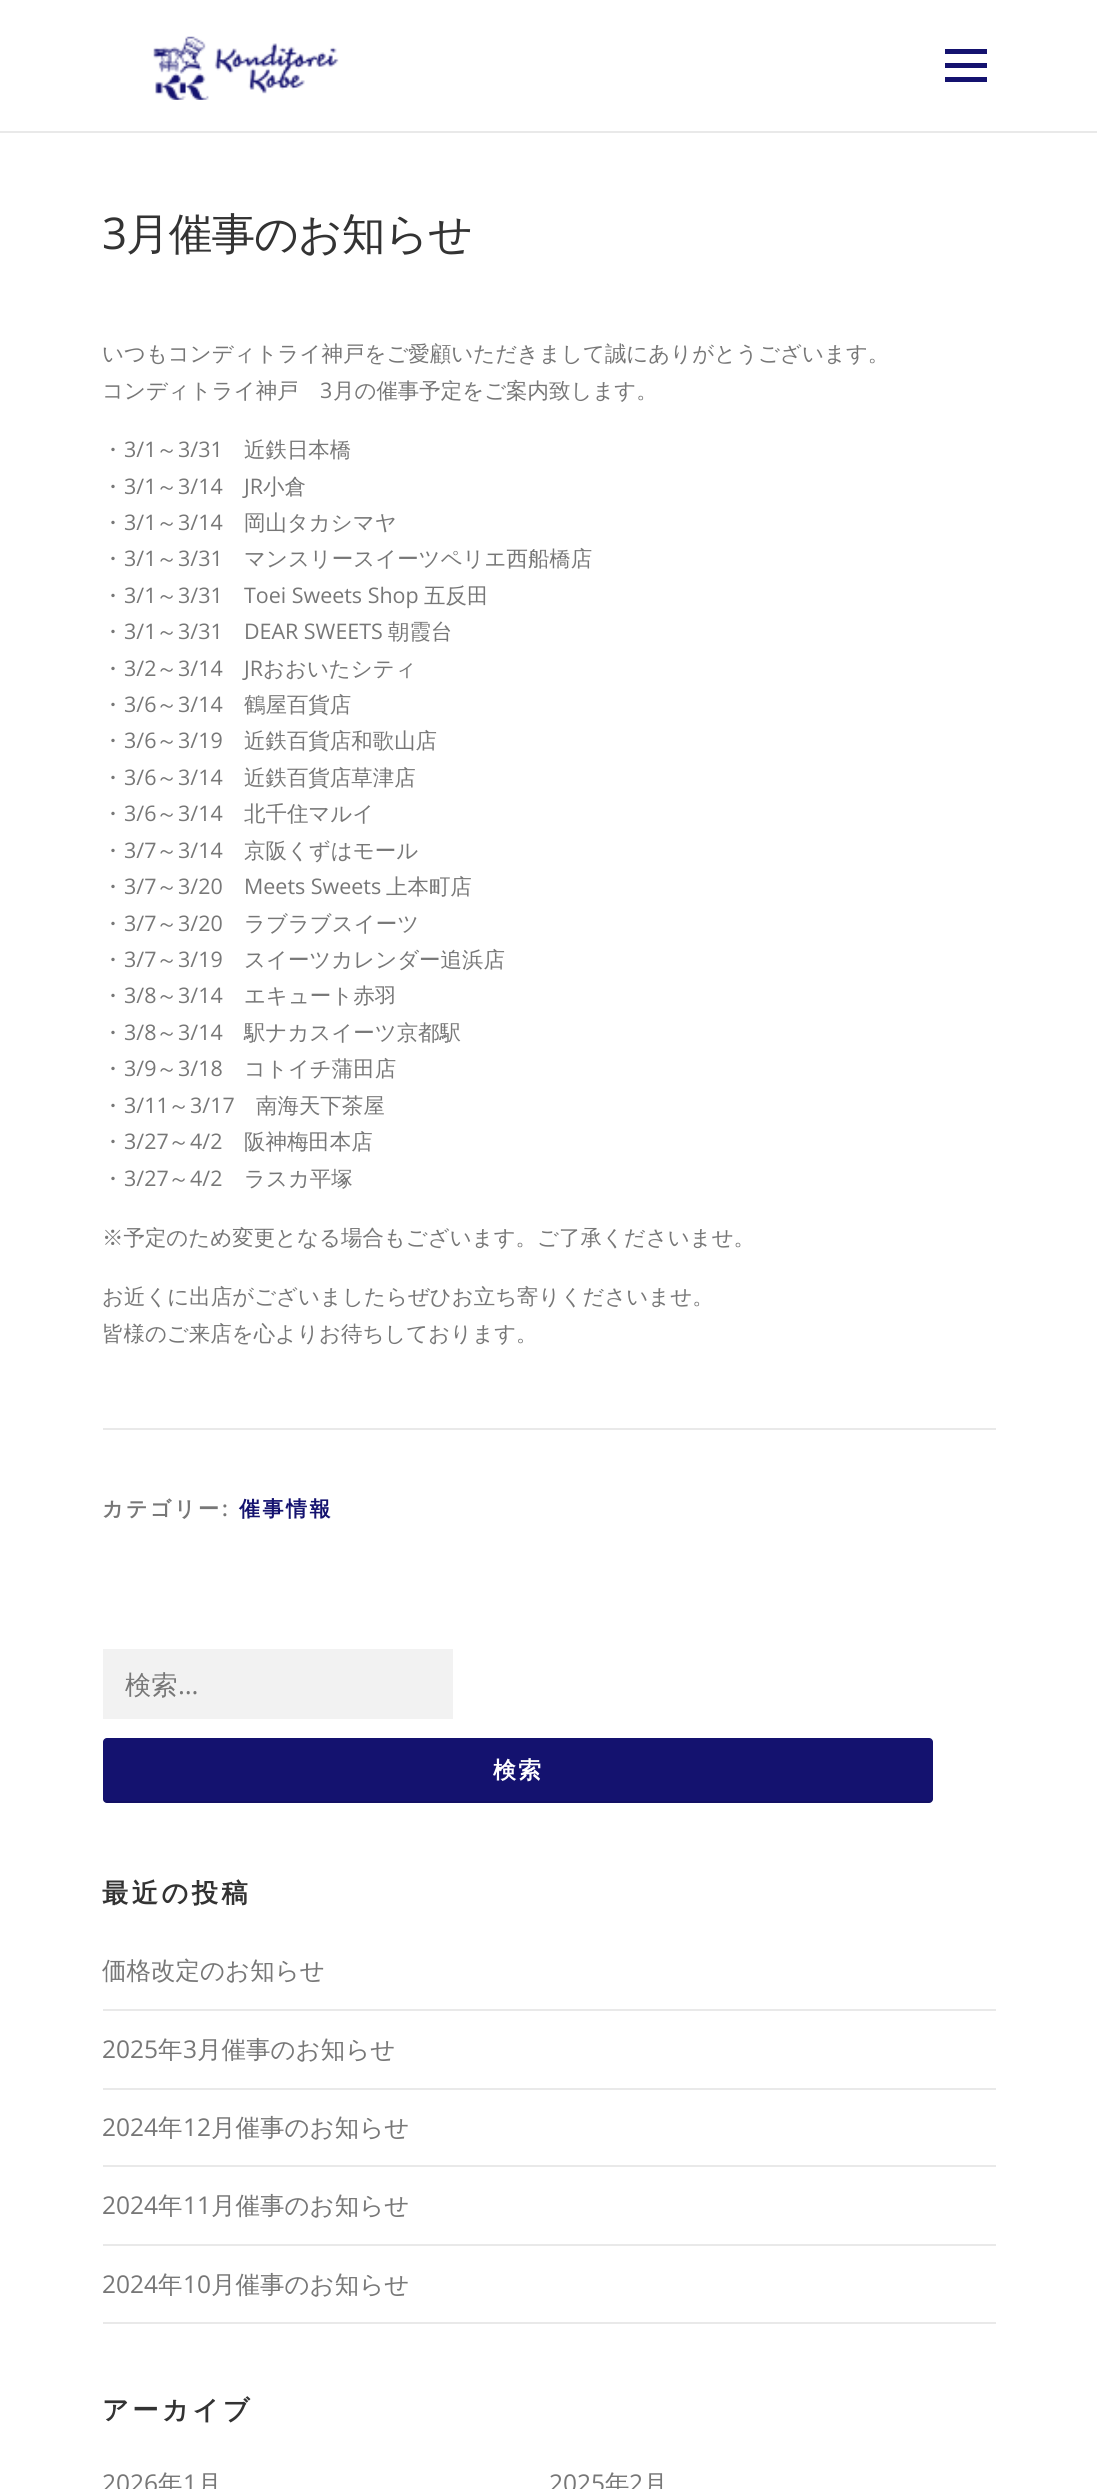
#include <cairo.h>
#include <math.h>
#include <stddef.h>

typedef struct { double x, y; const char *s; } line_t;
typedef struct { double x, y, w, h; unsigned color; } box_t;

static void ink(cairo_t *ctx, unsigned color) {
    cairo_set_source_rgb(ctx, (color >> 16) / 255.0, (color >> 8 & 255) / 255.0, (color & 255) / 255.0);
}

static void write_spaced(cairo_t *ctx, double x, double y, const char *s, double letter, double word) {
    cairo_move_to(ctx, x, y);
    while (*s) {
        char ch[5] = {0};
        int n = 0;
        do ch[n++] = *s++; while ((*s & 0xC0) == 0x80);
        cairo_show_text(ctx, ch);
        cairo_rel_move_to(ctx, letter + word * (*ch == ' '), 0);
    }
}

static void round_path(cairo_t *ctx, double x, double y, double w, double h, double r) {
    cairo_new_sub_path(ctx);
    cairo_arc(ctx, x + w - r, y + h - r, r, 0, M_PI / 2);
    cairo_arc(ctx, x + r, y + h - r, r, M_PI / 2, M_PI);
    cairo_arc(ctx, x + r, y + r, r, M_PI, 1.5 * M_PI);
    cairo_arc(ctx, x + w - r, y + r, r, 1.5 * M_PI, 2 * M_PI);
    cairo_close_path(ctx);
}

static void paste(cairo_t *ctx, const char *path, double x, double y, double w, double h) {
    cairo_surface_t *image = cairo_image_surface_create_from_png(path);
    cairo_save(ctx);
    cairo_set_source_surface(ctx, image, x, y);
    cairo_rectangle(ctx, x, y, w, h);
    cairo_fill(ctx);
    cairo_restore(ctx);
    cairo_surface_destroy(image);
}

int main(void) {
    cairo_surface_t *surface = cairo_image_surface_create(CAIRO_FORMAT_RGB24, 1097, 2489);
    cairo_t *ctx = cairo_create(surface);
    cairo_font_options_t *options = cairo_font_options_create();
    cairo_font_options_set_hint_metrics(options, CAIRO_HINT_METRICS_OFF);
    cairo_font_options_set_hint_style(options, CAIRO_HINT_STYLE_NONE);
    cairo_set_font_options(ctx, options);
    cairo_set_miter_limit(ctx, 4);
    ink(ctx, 0xFFFFFF);
    cairo_paint(ctx);
    paste(ctx, "media/1.png", 153, 36, 186, 64);
    {
        static const box_t items[] = {
            {945, 63, 42, 5, 0x14126F},
            {945, 49, 42, 5, 0x14126F},
            {945, 77, 42, 5, 0x14126F},
            {0, 131, 1097, 2, 0xE9E9E9},
        };
        for (size_t i = 0; i < sizeof items / sizeof *items; i++) {
            ink(ctx, items[i].color);
            cairo_rectangle(ctx, items[i].x, items[i].y, items[i].w, items[i].h);
            cairo_fill(ctx);
        }
    }
    cairo_select_font_face(ctx, "Open Sans", CAIRO_FONT_SLANT_NORMAL, CAIRO_FONT_WEIGHT_NORMAL);
    cairo_set_font_size(ctx, 43.75);
    ink(ctx, 0x333333);
    write_spaced(ctx, 102, 249, "3", -1, 0);
    cairo_select_font_face(ctx, "WenQuanYi Zen Hei Medium", CAIRO_FONT_SLANT_NORMAL, CAIRO_FONT_WEIGHT_NORMAL);
    write_spaced(ctx, 126, 249, "月催事のお知らせ", -1, 0);
    cairo_set_font_size(ctx, 21.45);
    ink(ctx, 0x777777);
    cairo_move_to(ctx, 102, 361);
    cairo_show_text(ctx, "いつもコンディトライ神戸をご愛顧いただきまして誠にありがとうございます。");
    cairo_move_to(ctx, 102, 398);
    cairo_show_text(ctx, "コンディトライ神戸");
    cairo_select_font_face(ctx, "Open Sans", CAIRO_FONT_SLANT_NORMAL, CAIRO_FONT_WEIGHT_NORMAL);
    cairo_move_to(ctx, 320, 398);
    cairo_show_text(ctx, "3");
    cairo_select_font_face(ctx, "WenQuanYi Zen Hei Medium", CAIRO_FONT_SLANT_NORMAL, CAIRO_FONT_WEIGHT_NORMAL);
    cairo_move_to(ctx, 333, 398);
    cairo_show_text(ctx, "月の催事予定をご案内致します。");
    cairo_move_to(ctx, 102, 457);
    cairo_show_text(ctx, "・");
    cairo_select_font_face(ctx, "Open Sans", CAIRO_FONT_SLANT_NORMAL, CAIRO_FONT_WEIGHT_NORMAL);
    cairo_move_to(ctx, 124, 457);
    cairo_show_text(ctx, "3/1");
    cairo_select_font_face(ctx, "WenQuanYi Zen Hei Medium", CAIRO_FONT_SLANT_NORMAL, CAIRO_FONT_WEIGHT_NORMAL);
    cairo_move_to(ctx, 156, 457);
    cairo_show_text(ctx, "～");
    cairo_select_font_face(ctx, "Open Sans", CAIRO_FONT_SLANT_NORMAL, CAIRO_FONT_WEIGHT_NORMAL);
    cairo_move_to(ctx, 178, 457);
    cairo_show_text(ctx, "3/31");
    cairo_select_font_face(ctx, "WenQuanYi Zen Hei Medium", CAIRO_FONT_SLANT_NORMAL, CAIRO_FONT_WEIGHT_NORMAL);
    cairo_move_to(ctx, 244, 457);
    cairo_show_text(ctx, "近鉄日本橋");
    cairo_move_to(ctx, 102, 494);
    cairo_show_text(ctx, "・");
    cairo_select_font_face(ctx, "Open Sans", CAIRO_FONT_SLANT_NORMAL, CAIRO_FONT_WEIGHT_NORMAL);
    cairo_move_to(ctx, 124, 494);
    cairo_show_text(ctx, "3/1");
    cairo_select_font_face(ctx, "WenQuanYi Zen Hei Medium", CAIRO_FONT_SLANT_NORMAL, CAIRO_FONT_WEIGHT_NORMAL);
    cairo_move_to(ctx, 156, 494);
    cairo_show_text(ctx, "～");
    cairo_select_font_face(ctx, "Open Sans", CAIRO_FONT_SLANT_NORMAL, CAIRO_FONT_WEIGHT_NORMAL);
    cairo_move_to(ctx, 178, 494);
    cairo_show_text(ctx, "3/14");
    cairo_move_to(ctx, 244, 494);
    cairo_show_text(ctx, "JR");
    cairo_select_font_face(ctx, "WenQuanYi Zen Hei Medium", CAIRO_FONT_SLANT_NORMAL, CAIRO_FONT_WEIGHT_NORMAL);
    cairo_move_to(ctx, 263, 494);
    cairo_show_text(ctx, "小倉");
    cairo_move_to(ctx, 102, 530);
    cairo_show_text(ctx, "・");
    cairo_select_font_face(ctx, "Open Sans", CAIRO_FONT_SLANT_NORMAL, CAIRO_FONT_WEIGHT_NORMAL);
    cairo_move_to(ctx, 124, 530);
    cairo_show_text(ctx, "3/1");
    cairo_select_font_face(ctx, "WenQuanYi Zen Hei Medium", CAIRO_FONT_SLANT_NORMAL, CAIRO_FONT_WEIGHT_NORMAL);
    cairo_move_to(ctx, 156, 530);
    cairo_show_text(ctx, "～");
    cairo_select_font_face(ctx, "Open Sans", CAIRO_FONT_SLANT_NORMAL, CAIRO_FONT_WEIGHT_NORMAL);
    cairo_move_to(ctx, 178, 530);
    cairo_show_text(ctx, "3/14");
    cairo_select_font_face(ctx, "WenQuanYi Zen Hei Medium", CAIRO_FONT_SLANT_NORMAL, CAIRO_FONT_WEIGHT_NORMAL);
    cairo_move_to(ctx, 244, 530);
    cairo_show_text(ctx, "岡山タカシマヤ");
    cairo_move_to(ctx, 102, 566);
    cairo_show_text(ctx, "・");
    cairo_select_font_face(ctx, "Open Sans", CAIRO_FONT_SLANT_NORMAL, CAIRO_FONT_WEIGHT_NORMAL);
    cairo_move_to(ctx, 124, 566);
    cairo_show_text(ctx, "3/1");
    cairo_select_font_face(ctx, "WenQuanYi Zen Hei Medium", CAIRO_FONT_SLANT_NORMAL, CAIRO_FONT_WEIGHT_NORMAL);
    cairo_move_to(ctx, 156, 566);
    cairo_show_text(ctx, "～");
    cairo_select_font_face(ctx, "Open Sans", CAIRO_FONT_SLANT_NORMAL, CAIRO_FONT_WEIGHT_NORMAL);
    cairo_move_to(ctx, 178, 566);
    cairo_show_text(ctx, "3/31");
    cairo_select_font_face(ctx, "WenQuanYi Zen Hei Medium", CAIRO_FONT_SLANT_NORMAL, CAIRO_FONT_WEIGHT_NORMAL);
    cairo_move_to(ctx, 244, 566);
    cairo_show_text(ctx, "マンスリースイーツペリエ西船橋店");
    cairo_move_to(ctx, 102, 603);
    cairo_show_text(ctx, "・");
    cairo_select_font_face(ctx, "Open Sans", CAIRO_FONT_SLANT_NORMAL, CAIRO_FONT_WEIGHT_NORMAL);
    cairo_move_to(ctx, 124, 603);
    cairo_show_text(ctx, "3/1");
    cairo_select_font_face(ctx, "WenQuanYi Zen Hei Medium", CAIRO_FONT_SLANT_NORMAL, CAIRO_FONT_WEIGHT_NORMAL);
    cairo_move_to(ctx, 156, 603);
    cairo_show_text(ctx, "～");
    cairo_select_font_face(ctx, "Open Sans", CAIRO_FONT_SLANT_NORMAL, CAIRO_FONT_WEIGHT_NORMAL);
    cairo_move_to(ctx, 178, 603);
    cairo_show_text(ctx, "3/31");
    cairo_move_to(ctx, 244, 603);
    cairo_show_text(ctx, "Toei Sweets Shop");
    cairo_select_font_face(ctx, "WenQuanYi Zen Hei Medium", CAIRO_FONT_SLANT_NORMAL, CAIRO_FONT_WEIGHT_NORMAL);
    cairo_move_to(ctx, 424, 603);
    cairo_show_text(ctx, "五反田");
    cairo_move_to(ctx, 102, 639);
    cairo_show_text(ctx, "・");
    cairo_select_font_face(ctx, "Open Sans", CAIRO_FONT_SLANT_NORMAL, CAIRO_FONT_WEIGHT_NORMAL);
    cairo_move_to(ctx, 124, 639);
    cairo_show_text(ctx, "3/1");
    cairo_select_font_face(ctx, "WenQuanYi Zen Hei Medium", CAIRO_FONT_SLANT_NORMAL, CAIRO_FONT_WEIGHT_NORMAL);
    cairo_move_to(ctx, 156, 639);
    cairo_show_text(ctx, "～");
    cairo_select_font_face(ctx, "Open Sans", CAIRO_FONT_SLANT_NORMAL, CAIRO_FONT_WEIGHT_NORMAL);
    cairo_move_to(ctx, 178, 639);
    cairo_show_text(ctx, "3/31");
    cairo_move_to(ctx, 244, 639);
    cairo_show_text(ctx, "DEAR SWEETS");
    cairo_select_font_face(ctx, "WenQuanYi Zen Hei Medium", CAIRO_FONT_SLANT_NORMAL, CAIRO_FONT_WEIGHT_NORMAL);
    cairo_move_to(ctx, 388, 639);
    cairo_show_text(ctx, "朝霞台");
    cairo_move_to(ctx, 102, 676);
    cairo_show_text(ctx, "・");
    cairo_select_font_face(ctx, "Open Sans", CAIRO_FONT_SLANT_NORMAL, CAIRO_FONT_WEIGHT_NORMAL);
    cairo_move_to(ctx, 124, 676);
    cairo_show_text(ctx, "3/2");
    cairo_select_font_face(ctx, "WenQuanYi Zen Hei Medium", CAIRO_FONT_SLANT_NORMAL, CAIRO_FONT_WEIGHT_NORMAL);
    cairo_move_to(ctx, 156, 676);
    cairo_show_text(ctx, "～");
    cairo_select_font_face(ctx, "Open Sans", CAIRO_FONT_SLANT_NORMAL, CAIRO_FONT_WEIGHT_NORMAL);
    cairo_move_to(ctx, 178, 676);
    cairo_show_text(ctx, "3/14");
    cairo_move_to(ctx, 244, 676);
    cairo_show_text(ctx, "JR");
    cairo_select_font_face(ctx, "WenQuanYi Zen Hei Medium", CAIRO_FONT_SLANT_NORMAL, CAIRO_FONT_WEIGHT_NORMAL);
    cairo_move_to(ctx, 263, 676);
    cairo_show_text(ctx, "おおいたシティ");
    cairo_move_to(ctx, 102, 712);
    cairo_show_text(ctx, "・");
    cairo_select_font_face(ctx, "Open Sans", CAIRO_FONT_SLANT_NORMAL, CAIRO_FONT_WEIGHT_NORMAL);
    cairo_move_to(ctx, 124, 712);
    cairo_show_text(ctx, "3/6");
    cairo_select_font_face(ctx, "WenQuanYi Zen Hei Medium", CAIRO_FONT_SLANT_NORMAL, CAIRO_FONT_WEIGHT_NORMAL);
    cairo_move_to(ctx, 156, 712);
    cairo_show_text(ctx, "～");
    cairo_select_font_face(ctx, "Open Sans", CAIRO_FONT_SLANT_NORMAL, CAIRO_FONT_WEIGHT_NORMAL);
    cairo_move_to(ctx, 178, 712);
    cairo_show_text(ctx, "3/14");
    cairo_select_font_face(ctx, "WenQuanYi Zen Hei Medium", CAIRO_FONT_SLANT_NORMAL, CAIRO_FONT_WEIGHT_NORMAL);
    cairo_move_to(ctx, 244, 712);
    cairo_show_text(ctx, "鶴屋百貨店");
    cairo_move_to(ctx, 102, 748);
    cairo_show_text(ctx, "・");
    cairo_select_font_face(ctx, "Open Sans", CAIRO_FONT_SLANT_NORMAL, CAIRO_FONT_WEIGHT_NORMAL);
    cairo_move_to(ctx, 124, 748);
    cairo_show_text(ctx, "3/6");
    cairo_select_font_face(ctx, "WenQuanYi Zen Hei Medium", CAIRO_FONT_SLANT_NORMAL, CAIRO_FONT_WEIGHT_NORMAL);
    cairo_move_to(ctx, 156, 748);
    cairo_show_text(ctx, "～");
    cairo_select_font_face(ctx, "Open Sans", CAIRO_FONT_SLANT_NORMAL, CAIRO_FONT_WEIGHT_NORMAL);
    cairo_move_to(ctx, 178, 748);
    cairo_show_text(ctx, "3/19");
    cairo_select_font_face(ctx, "WenQuanYi Zen Hei Medium", CAIRO_FONT_SLANT_NORMAL, CAIRO_FONT_WEIGHT_NORMAL);
    cairo_move_to(ctx, 244, 748);
    cairo_show_text(ctx, "近鉄百貨店和歌山店");
    cairo_move_to(ctx, 102, 785);
    cairo_show_text(ctx, "・");
    cairo_select_font_face(ctx, "Open Sans", CAIRO_FONT_SLANT_NORMAL, CAIRO_FONT_WEIGHT_NORMAL);
    cairo_move_to(ctx, 124, 785);
    cairo_show_text(ctx, "3/6");
    cairo_select_font_face(ctx, "WenQuanYi Zen Hei Medium", CAIRO_FONT_SLANT_NORMAL, CAIRO_FONT_WEIGHT_NORMAL);
    cairo_move_to(ctx, 156, 785);
    cairo_show_text(ctx, "～");
    cairo_select_font_face(ctx, "Open Sans", CAIRO_FONT_SLANT_NORMAL, CAIRO_FONT_WEIGHT_NORMAL);
    cairo_move_to(ctx, 178, 785);
    cairo_show_text(ctx, "3/14");
    cairo_select_font_face(ctx, "WenQuanYi Zen Hei Medium", CAIRO_FONT_SLANT_NORMAL, CAIRO_FONT_WEIGHT_NORMAL);
    cairo_move_to(ctx, 244, 785);
    cairo_show_text(ctx, "近鉄百貨店草津店");
    cairo_move_to(ctx, 102, 821);
    cairo_show_text(ctx, "・");
    cairo_select_font_face(ctx, "Open Sans", CAIRO_FONT_SLANT_NORMAL, CAIRO_FONT_WEIGHT_NORMAL);
    cairo_move_to(ctx, 124, 821);
    cairo_show_text(ctx, "3/6");
    cairo_select_font_face(ctx, "WenQuanYi Zen Hei Medium", CAIRO_FONT_SLANT_NORMAL, CAIRO_FONT_WEIGHT_NORMAL);
    cairo_move_to(ctx, 156, 821);
    cairo_show_text(ctx, "～");
    cairo_select_font_face(ctx, "Open Sans", CAIRO_FONT_SLANT_NORMAL, CAIRO_FONT_WEIGHT_NORMAL);
    cairo_move_to(ctx, 178, 821);
    cairo_show_text(ctx, "3/14");
    cairo_select_font_face(ctx, "WenQuanYi Zen Hei Medium", CAIRO_FONT_SLANT_NORMAL, CAIRO_FONT_WEIGHT_NORMAL);
    cairo_move_to(ctx, 244, 821);
    cairo_show_text(ctx, "北千住マルイ");
    cairo_move_to(ctx, 102, 858);
    cairo_show_text(ctx, "・");
    cairo_select_font_face(ctx, "Open Sans", CAIRO_FONT_SLANT_NORMAL, CAIRO_FONT_WEIGHT_NORMAL);
    cairo_move_to(ctx, 124, 858);
    cairo_show_text(ctx, "3/7");
    cairo_select_font_face(ctx, "WenQuanYi Zen Hei Medium", CAIRO_FONT_SLANT_NORMAL, CAIRO_FONT_WEIGHT_NORMAL);
    cairo_move_to(ctx, 156, 858);
    cairo_show_text(ctx, "～");
    cairo_select_font_face(ctx, "Open Sans", CAIRO_FONT_SLANT_NORMAL, CAIRO_FONT_WEIGHT_NORMAL);
    cairo_move_to(ctx, 178, 858);
    cairo_show_text(ctx, "3/14");
    cairo_select_font_face(ctx, "WenQuanYi Zen Hei Medium", CAIRO_FONT_SLANT_NORMAL, CAIRO_FONT_WEIGHT_NORMAL);
    cairo_move_to(ctx, 244, 858);
    cairo_show_text(ctx, "京阪くずはモール");
    cairo_move_to(ctx, 102, 894);
    cairo_show_text(ctx, "・");
    cairo_select_font_face(ctx, "Open Sans", CAIRO_FONT_SLANT_NORMAL, CAIRO_FONT_WEIGHT_NORMAL);
    cairo_move_to(ctx, 124, 894);
    cairo_show_text(ctx, "3/7");
    cairo_select_font_face(ctx, "WenQuanYi Zen Hei Medium", CAIRO_FONT_SLANT_NORMAL, CAIRO_FONT_WEIGHT_NORMAL);
    cairo_move_to(ctx, 156, 894);
    cairo_show_text(ctx, "～");
    cairo_select_font_face(ctx, "Open Sans", CAIRO_FONT_SLANT_NORMAL, CAIRO_FONT_WEIGHT_NORMAL);
    cairo_move_to(ctx, 178, 894);
    cairo_show_text(ctx, "3/20");
    cairo_move_to(ctx, 244, 894);
    cairo_show_text(ctx, "Meets Sweets");
    cairo_select_font_face(ctx, "WenQuanYi Zen Hei Medium", CAIRO_FONT_SLANT_NORMAL, CAIRO_FONT_WEIGHT_NORMAL);
    cairo_move_to(ctx, 386, 894);
    cairo_show_text(ctx, "上本町店");
    cairo_move_to(ctx, 102, 931);
    cairo_show_text(ctx, "・");
    cairo_select_font_face(ctx, "Open Sans", CAIRO_FONT_SLANT_NORMAL, CAIRO_FONT_WEIGHT_NORMAL);
    cairo_move_to(ctx, 124, 931);
    cairo_show_text(ctx, "3/7");
    cairo_select_font_face(ctx, "WenQuanYi Zen Hei Medium", CAIRO_FONT_SLANT_NORMAL, CAIRO_FONT_WEIGHT_NORMAL);
    cairo_move_to(ctx, 156, 931);
    cairo_show_text(ctx, "～");
    cairo_select_font_face(ctx, "Open Sans", CAIRO_FONT_SLANT_NORMAL, CAIRO_FONT_WEIGHT_NORMAL);
    cairo_move_to(ctx, 178, 931);
    cairo_show_text(ctx, "3/20");
    cairo_select_font_face(ctx, "WenQuanYi Zen Hei Medium", CAIRO_FONT_SLANT_NORMAL, CAIRO_FONT_WEIGHT_NORMAL);
    cairo_move_to(ctx, 244, 931);
    cairo_show_text(ctx, "ラブラブスイーツ");
    cairo_move_to(ctx, 102, 967);
    cairo_show_text(ctx, "・");
    cairo_select_font_face(ctx, "Open Sans", CAIRO_FONT_SLANT_NORMAL, CAIRO_FONT_WEIGHT_NORMAL);
    cairo_move_to(ctx, 124, 967);
    cairo_show_text(ctx, "3/7");
    cairo_select_font_face(ctx, "WenQuanYi Zen Hei Medium", CAIRO_FONT_SLANT_NORMAL, CAIRO_FONT_WEIGHT_NORMAL);
    cairo_move_to(ctx, 156, 967);
    cairo_show_text(ctx, "～");
    cairo_select_font_face(ctx, "Open Sans", CAIRO_FONT_SLANT_NORMAL, CAIRO_FONT_WEIGHT_NORMAL);
    cairo_move_to(ctx, 178, 967);
    cairo_show_text(ctx, "3/19");
    cairo_select_font_face(ctx, "WenQuanYi Zen Hei Medium", CAIRO_FONT_SLANT_NORMAL, CAIRO_FONT_WEIGHT_NORMAL);
    cairo_move_to(ctx, 244, 967);
    cairo_show_text(ctx, "スイーツカレンダー追浜店");
    cairo_move_to(ctx, 102, 1003);
    cairo_show_text(ctx, "・");
    cairo_select_font_face(ctx, "Open Sans", CAIRO_FONT_SLANT_NORMAL, CAIRO_FONT_WEIGHT_NORMAL);
    cairo_move_to(ctx, 124, 1003);
    cairo_show_text(ctx, "3/8");
    cairo_select_font_face(ctx, "WenQuanYi Zen Hei Medium", CAIRO_FONT_SLANT_NORMAL, CAIRO_FONT_WEIGHT_NORMAL);
    cairo_move_to(ctx, 156, 1003);
    cairo_show_text(ctx, "～");
    cairo_select_font_face(ctx, "Open Sans", CAIRO_FONT_SLANT_NORMAL, CAIRO_FONT_WEIGHT_NORMAL);
    cairo_move_to(ctx, 178, 1003);
    cairo_show_text(ctx, "3/14");
    cairo_select_font_face(ctx, "WenQuanYi Zen Hei Medium", CAIRO_FONT_SLANT_NORMAL, CAIRO_FONT_WEIGHT_NORMAL);
    cairo_move_to(ctx, 244, 1003);
    cairo_show_text(ctx, "エキュート赤羽");
    cairo_move_to(ctx, 102, 1040);
    cairo_show_text(ctx, "・");
    cairo_select_font_face(ctx, "Open Sans", CAIRO_FONT_SLANT_NORMAL, CAIRO_FONT_WEIGHT_NORMAL);
    cairo_move_to(ctx, 124, 1040);
    cairo_show_text(ctx, "3/8");
    cairo_select_font_face(ctx, "WenQuanYi Zen Hei Medium", CAIRO_FONT_SLANT_NORMAL, CAIRO_FONT_WEIGHT_NORMAL);
    cairo_move_to(ctx, 156, 1040);
    cairo_show_text(ctx, "～");
    cairo_select_font_face(ctx, "Open Sans", CAIRO_FONT_SLANT_NORMAL, CAIRO_FONT_WEIGHT_NORMAL);
    cairo_move_to(ctx, 178, 1040);
    cairo_show_text(ctx, "3/14");
    cairo_select_font_face(ctx, "WenQuanYi Zen Hei Medium", CAIRO_FONT_SLANT_NORMAL, CAIRO_FONT_WEIGHT_NORMAL);
    cairo_move_to(ctx, 244, 1040);
    cairo_show_text(ctx, "駅ナカスイーツ京都駅");
    cairo_move_to(ctx, 102, 1076);
    cairo_show_text(ctx, "・");
    cairo_select_font_face(ctx, "Open Sans", CAIRO_FONT_SLANT_NORMAL, CAIRO_FONT_WEIGHT_NORMAL);
    cairo_move_to(ctx, 124, 1076);
    cairo_show_text(ctx, "3/9");
    cairo_select_font_face(ctx, "WenQuanYi Zen Hei Medium", CAIRO_FONT_SLANT_NORMAL, CAIRO_FONT_WEIGHT_NORMAL);
    cairo_move_to(ctx, 156, 1076);
    cairo_show_text(ctx, "～");
    cairo_select_font_face(ctx, "Open Sans", CAIRO_FONT_SLANT_NORMAL, CAIRO_FONT_WEIGHT_NORMAL);
    cairo_move_to(ctx, 178, 1076);
    cairo_show_text(ctx, "3/18");
    cairo_select_font_face(ctx, "WenQuanYi Zen Hei Medium", CAIRO_FONT_SLANT_NORMAL, CAIRO_FONT_WEIGHT_NORMAL);
    cairo_move_to(ctx, 244, 1076);
    cairo_show_text(ctx, "コトイチ蒲田店");
    cairo_move_to(ctx, 102, 1113);
    cairo_show_text(ctx, "・");
    cairo_select_font_face(ctx, "Open Sans", CAIRO_FONT_SLANT_NORMAL, CAIRO_FONT_WEIGHT_NORMAL);
    cairo_move_to(ctx, 124, 1113);
    cairo_show_text(ctx, "3/11");
    cairo_select_font_face(ctx, "WenQuanYi Zen Hei Medium", CAIRO_FONT_SLANT_NORMAL, CAIRO_FONT_WEIGHT_NORMAL);
    cairo_move_to(ctx, 168, 1113);
    cairo_show_text(ctx, "～");
    cairo_select_font_face(ctx, "Open Sans", CAIRO_FONT_SLANT_NORMAL, CAIRO_FONT_WEIGHT_NORMAL);
    cairo_move_to(ctx, 190, 1113);
    cairo_show_text(ctx, "3/17");
    cairo_select_font_face(ctx, "WenQuanYi Zen Hei Medium", CAIRO_FONT_SLANT_NORMAL, CAIRO_FONT_WEIGHT_NORMAL);
    cairo_move_to(ctx, 256, 1113);
    cairo_show_text(ctx, "南海天下茶屋");
    cairo_move_to(ctx, 102, 1149);
    cairo_show_text(ctx, "・");
    cairo_select_font_face(ctx, "Open Sans", CAIRO_FONT_SLANT_NORMAL, CAIRO_FONT_WEIGHT_NORMAL);
    cairo_move_to(ctx, 124, 1149);
    cairo_show_text(ctx, "3/27");
    cairo_select_font_face(ctx, "WenQuanYi Zen Hei Medium", CAIRO_FONT_SLANT_NORMAL, CAIRO_FONT_WEIGHT_NORMAL);
    cairo_move_to(ctx, 168, 1149);
    cairo_show_text(ctx, "～");
    cairo_select_font_face(ctx, "Open Sans", CAIRO_FONT_SLANT_NORMAL, CAIRO_FONT_WEIGHT_NORMAL);
    cairo_move_to(ctx, 190, 1149);
    cairo_show_text(ctx, "4/2");
    cairo_select_font_face(ctx, "WenQuanYi Zen Hei Medium", CAIRO_FONT_SLANT_NORMAL, CAIRO_FONT_WEIGHT_NORMAL);
    cairo_move_to(ctx, 244, 1149);
    cairo_show_text(ctx, "阪神梅田本店");
    cairo_move_to(ctx, 102, 1186);
    cairo_show_text(ctx, "・");
    cairo_select_font_face(ctx, "Open Sans", CAIRO_FONT_SLANT_NORMAL, CAIRO_FONT_WEIGHT_NORMAL);
    cairo_move_to(ctx, 124, 1186);
    cairo_show_text(ctx, "3/27");
    cairo_select_font_face(ctx, "WenQuanYi Zen Hei Medium", CAIRO_FONT_SLANT_NORMAL, CAIRO_FONT_WEIGHT_NORMAL);
    cairo_move_to(ctx, 168, 1186);
    cairo_show_text(ctx, "～");
    cairo_select_font_face(ctx, "Open Sans", CAIRO_FONT_SLANT_NORMAL, CAIRO_FONT_WEIGHT_NORMAL);
    cairo_move_to(ctx, 190, 1186);
    cairo_show_text(ctx, "4/2");
    cairo_select_font_face(ctx, "WenQuanYi Zen Hei Medium", CAIRO_FONT_SLANT_NORMAL, CAIRO_FONT_WEIGHT_NORMAL);
    {
        static const line_t items[] = {
            {244, 1186, "ラスカ平塚"},
            {102, 1245, "※予定のため変更となる場合もございます。ご了承くださいませ。"},
            {102, 1304, "お近くに出店がございましたらぜひお立ち寄りくださいませ。"},
            {102, 1341, "皆様のご来店を心よりお待ちしております。"},
        };
        for (size_t i = 0; i < sizeof items / sizeof *items; i++) {
            cairo_move_to(ctx, items[i].x, items[i].y);
            cairo_show_text(ctx, items[i].s);
        }
    }
    ink(ctx, 0xE9E9E9);
    cairo_rectangle(ctx, 103, 1428, 893, 2);
    cairo_fill(ctx);
    cairo_select_font_face(ctx, "WenQuanYi Zen Hei", CAIRO_FONT_SLANT_NORMAL, CAIRO_FONT_WEIGHT_BOLD);
    cairo_set_font_size(ctx, 21);
    ink(ctx, 0x777777);
    write_spaced(ctx, 102, 1516, "カテゴリー", 2.5, 0);
    cairo_select_font_face(ctx, "Open Sans SemiBold", CAIRO_FONT_SLANT_NORMAL, CAIRO_FONT_WEIGHT_NORMAL);
    write_spaced(ctx, 222, 1516, ":", 2.5, 0);
    cairo_select_font_face(ctx, "WenQuanYi Zen Hei", CAIRO_FONT_SLANT_NORMAL, CAIRO_FONT_WEIGHT_BOLD);
    ink(ctx, 0x14126F);
    write_spaced(ctx, 239, 1516, "催事情報", 2.5, 0);
    ink(ctx, 0xF2F2F2);
    cairo_rectangle(ctx, 103, 1649, 350, 70);
    cairo_fill(ctx);
    cairo_select_font_face(ctx, "WenQuanYi Zen Hei Medium", CAIRO_FONT_SLANT_NORMAL, CAIRO_FONT_WEIGHT_NORMAL);
    cairo_set_font_size(ctx, 26.25);
    ink(ctx, 0x777777);
    cairo_move_to(ctx, 125, 1694);
    cairo_show_text(ctx, "検索");
    cairo_select_font_face(ctx, "Open Sans", CAIRO_FONT_SLANT_NORMAL, CAIRO_FONT_WEIGHT_NORMAL);
    cairo_move_to(ctx, 178, 1694);
    cairo_show_text(ctx, "…");
    ink(ctx, 0x14126F);
    round_path(ctx, 103, 1738, 830, 65, 4);
    cairo_fill(ctx);
    cairo_set_source_rgba(ctx, 0, 0, 0, 0.1);
    cairo_new_path(ctx);
    cairo_move_to(ctx, 103, 1797);
    cairo_line_to(ctx, 103, 1799);
    cairo_curve_to(ctx, 103, 1801, 105, 1803, 107, 1803);
    cairo_line_to(ctx, 929, 1803);
    cairo_curve_to(ctx, 931, 1803, 933, 1801, 933, 1799);
    cairo_line_to(ctx, 933, 1797);
    cairo_curve_to(ctx, 933, 1799, 931, 1801, 929, 1801);
    cairo_line_to(ctx, 107, 1801);
    cairo_curve_to(ctx, 105, 1801, 103, 1799, 103, 1797);
    cairo_close_path(ctx);
    cairo_fill(ctx);
    cairo_select_font_face(ctx, "WenQuanYi Zen Hei", CAIRO_FONT_SLANT_NORMAL, CAIRO_FONT_WEIGHT_BOLD);
    cairo_set_font_size(ctx, 23);
    ink(ctx, 0xFFFFFF);
    write_spaced(ctx, 493, 1778, "検索", 2, 0);
    cairo_set_font_size(ctx, 26.25);
    ink(ctx, 0x333333);
    write_spaced(ctx, 102, 1902, "最近の投稿", 3.5, 0);
    ink(ctx, 0xE9E9E9);
    cairo_rectangle(ctx, 103, 2009, 893, 2);
    cairo_fill(ctx);
    cairo_select_font_face(ctx, "WenQuanYi Zen Hei Medium", CAIRO_FONT_SLANT_NORMAL, CAIRO_FONT_WEIGHT_NORMAL);
    cairo_set_font_size(ctx, 24.5);
    ink(ctx, 0x777777);
    cairo_move_to(ctx, 102, 1979);
    cairo_show_text(ctx, "価格改定のお知らせ");
    ink(ctx, 0xE9E9E9);
    cairo_rectangle(ctx, 103, 2088, 893, 2);
    cairo_fill(ctx);
    cairo_select_font_face(ctx, "Open Sans", CAIRO_FONT_SLANT_NORMAL, CAIRO_FONT_WEIGHT_NORMAL);
    ink(ctx, 0x777777);
    cairo_move_to(ctx, 102, 2058);
    cairo_show_text(ctx, "2025");
    cairo_select_font_face(ctx, "WenQuanYi Zen Hei Medium", CAIRO_FONT_SLANT_NORMAL, CAIRO_FONT_WEIGHT_NORMAL);
    cairo_move_to(ctx, 158, 2058);
    cairo_show_text(ctx, "年");
    cairo_select_font_face(ctx, "Open Sans", CAIRO_FONT_SLANT_NORMAL, CAIRO_FONT_WEIGHT_NORMAL);
    cairo_move_to(ctx, 183, 2058);
    cairo_show_text(ctx, "3");
    cairo_select_font_face(ctx, "WenQuanYi Zen Hei Medium", CAIRO_FONT_SLANT_NORMAL, CAIRO_FONT_WEIGHT_NORMAL);
    cairo_move_to(ctx, 197, 2058);
    cairo_show_text(ctx, "月催事のお知らせ");
    ink(ctx, 0xE9E9E9);
    cairo_rectangle(ctx, 103, 2165, 893, 2);
    cairo_fill(ctx);
    cairo_select_font_face(ctx, "Open Sans", CAIRO_FONT_SLANT_NORMAL, CAIRO_FONT_WEIGHT_NORMAL);
    ink(ctx, 0x777777);
    cairo_move_to(ctx, 102, 2136);
    cairo_show_text(ctx, "2024");
    cairo_select_font_face(ctx, "WenQuanYi Zen Hei Medium", CAIRO_FONT_SLANT_NORMAL, CAIRO_FONT_WEIGHT_NORMAL);
    cairo_move_to(ctx, 158, 2136);
    cairo_show_text(ctx, "年");
    cairo_select_font_face(ctx, "Open Sans", CAIRO_FONT_SLANT_NORMAL, CAIRO_FONT_WEIGHT_NORMAL);
    cairo_move_to(ctx, 183, 2136);
    cairo_show_text(ctx, "12");
    cairo_select_font_face(ctx, "WenQuanYi Zen Hei Medium", CAIRO_FONT_SLANT_NORMAL, CAIRO_FONT_WEIGHT_NORMAL);
    cairo_move_to(ctx, 211, 2136);
    cairo_show_text(ctx, "月催事のお知らせ");
    ink(ctx, 0xE9E9E9);
    cairo_rectangle(ctx, 103, 2244, 893, 2);
    cairo_fill(ctx);
    cairo_select_font_face(ctx, "Open Sans", CAIRO_FONT_SLANT_NORMAL, CAIRO_FONT_WEIGHT_NORMAL);
    ink(ctx, 0x777777);
    cairo_move_to(ctx, 102, 2214);
    cairo_show_text(ctx, "2024");
    cairo_select_font_face(ctx, "WenQuanYi Zen Hei Medium", CAIRO_FONT_SLANT_NORMAL, CAIRO_FONT_WEIGHT_NORMAL);
    cairo_move_to(ctx, 158, 2214);
    cairo_show_text(ctx, "年");
    cairo_select_font_face(ctx, "Open Sans", CAIRO_FONT_SLANT_NORMAL, CAIRO_FONT_WEIGHT_NORMAL);
    cairo_move_to(ctx, 183, 2214);
    cairo_show_text(ctx, "11");
    cairo_select_font_face(ctx, "WenQuanYi Zen Hei Medium", CAIRO_FONT_SLANT_NORMAL, CAIRO_FONT_WEIGHT_NORMAL);
    cairo_move_to(ctx, 211, 2214);
    cairo_show_text(ctx, "月催事のお知らせ");
    ink(ctx, 0xE9E9E9);
    cairo_rectangle(ctx, 103, 2322, 893, 2);
    cairo_fill(ctx);
    cairo_select_font_face(ctx, "Open Sans", CAIRO_FONT_SLANT_NORMAL, CAIRO_FONT_WEIGHT_NORMAL);
    ink(ctx, 0x777777);
    cairo_move_to(ctx, 102, 2293);
    cairo_show_text(ctx, "2024");
    cairo_select_font_face(ctx, "WenQuanYi Zen Hei Medium", CAIRO_FONT_SLANT_NORMAL, CAIRO_FONT_WEIGHT_NORMAL);
    cairo_move_to(ctx, 158, 2293);
    cairo_show_text(ctx, "年");
    cairo_select_font_face(ctx, "Open Sans", CAIRO_FONT_SLANT_NORMAL, CAIRO_FONT_WEIGHT_NORMAL);
    cairo_move_to(ctx, 183, 2293);
    cairo_show_text(ctx, "10");
    cairo_select_font_face(ctx, "WenQuanYi Zen Hei Medium", CAIRO_FONT_SLANT_NORMAL, CAIRO_FONT_WEIGHT_NORMAL);
    cairo_move_to(ctx, 211, 2293);
    cairo_show_text(ctx, "月催事のお知らせ");
    cairo_select_font_face(ctx, "WenQuanYi Zen Hei", CAIRO_FONT_SLANT_NORMAL, CAIRO_FONT_WEIGHT_BOLD);
    cairo_set_font_size(ctx, 26.25);
    ink(ctx, 0x333333);
    write_spaced(ctx, 102, 2419, "アーカイブ", 3.5, 0);
    cairo_select_font_face(ctx, "Open Sans", CAIRO_FONT_SLANT_NORMAL, CAIRO_FONT_WEIGHT_NORMAL);
    cairo_set_font_size(ctx, 24.5);
    ink(ctx, 0x777777);
    cairo_move_to(ctx, 102, 2492);
    cairo_show_text(ctx, "2026");
    cairo_select_font_face(ctx, "WenQuanYi Zen Hei Medium", CAIRO_FONT_SLANT_NORMAL, CAIRO_FONT_WEIGHT_NORMAL);
    cairo_move_to(ctx, 158, 2492);
    cairo_show_text(ctx, "年");
    cairo_select_font_face(ctx, "Open Sans", CAIRO_FONT_SLANT_NORMAL, CAIRO_FONT_WEIGHT_NORMAL);
    cairo_move_to(ctx, 183, 2492);
    cairo_show_text(ctx, "1");
    cairo_select_font_face(ctx, "WenQuanYi Zen Hei Medium", CAIRO_FONT_SLANT_NORMAL, CAIRO_FONT_WEIGHT_NORMAL);
    cairo_move_to(ctx, 197, 2492);
    cairo_show_text(ctx, "月");
    cairo_select_font_face(ctx, "Open Sans", CAIRO_FONT_SLANT_NORMAL, CAIRO_FONT_WEIGHT_NORMAL);
    cairo_move_to(ctx, 549, 2492);
    cairo_show_text(ctx, "2025");
    cairo_select_font_face(ctx, "WenQuanYi Zen Hei Medium", CAIRO_FONT_SLANT_NORMAL, CAIRO_FONT_WEIGHT_NORMAL);
    cairo_move_to(ctx, 605, 2492);
    cairo_show_text(ctx, "年");
    cairo_select_font_face(ctx, "Open Sans", CAIRO_FONT_SLANT_NORMAL, CAIRO_FONT_WEIGHT_NORMAL);
    cairo_move_to(ctx, 629, 2492);
    cairo_show_text(ctx, "2");
    cairo_select_font_face(ctx, "WenQuanYi Zen Hei Medium", CAIRO_FONT_SLANT_NORMAL, CAIRO_FONT_WEIGHT_NORMAL);
    cairo_move_to(ctx, 643, 2492);
    cairo_show_text(ctx, "月");
    cairo_surface_write_to_png(surface, "image.png");
    cairo_font_options_destroy(options);
    cairo_destroy(ctx);
    cairo_surface_destroy(surface);
    return 0;
}
